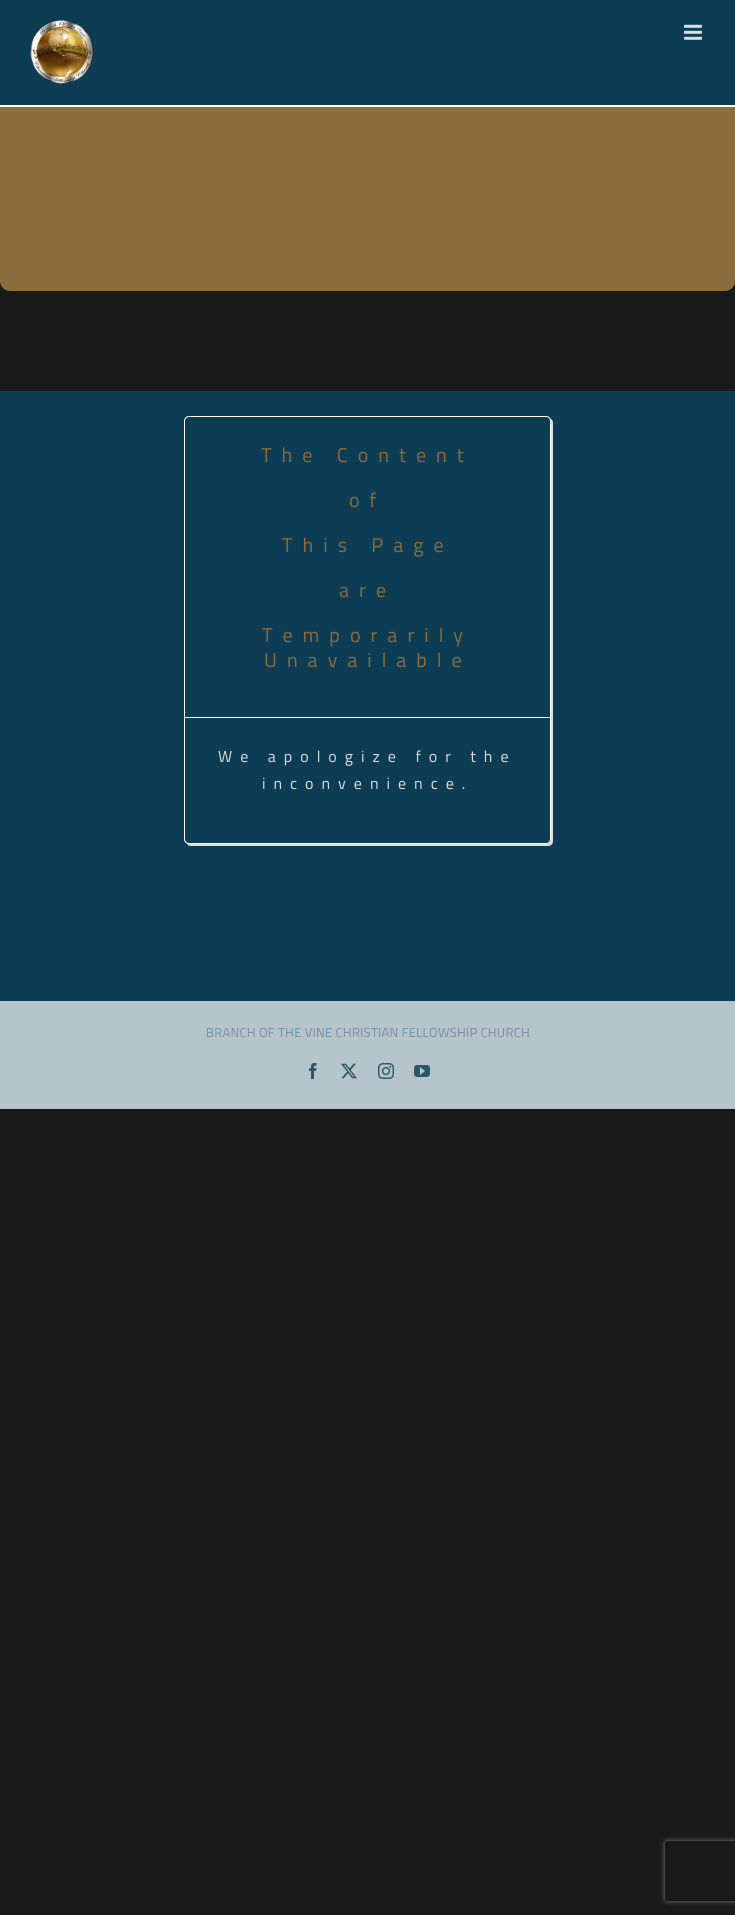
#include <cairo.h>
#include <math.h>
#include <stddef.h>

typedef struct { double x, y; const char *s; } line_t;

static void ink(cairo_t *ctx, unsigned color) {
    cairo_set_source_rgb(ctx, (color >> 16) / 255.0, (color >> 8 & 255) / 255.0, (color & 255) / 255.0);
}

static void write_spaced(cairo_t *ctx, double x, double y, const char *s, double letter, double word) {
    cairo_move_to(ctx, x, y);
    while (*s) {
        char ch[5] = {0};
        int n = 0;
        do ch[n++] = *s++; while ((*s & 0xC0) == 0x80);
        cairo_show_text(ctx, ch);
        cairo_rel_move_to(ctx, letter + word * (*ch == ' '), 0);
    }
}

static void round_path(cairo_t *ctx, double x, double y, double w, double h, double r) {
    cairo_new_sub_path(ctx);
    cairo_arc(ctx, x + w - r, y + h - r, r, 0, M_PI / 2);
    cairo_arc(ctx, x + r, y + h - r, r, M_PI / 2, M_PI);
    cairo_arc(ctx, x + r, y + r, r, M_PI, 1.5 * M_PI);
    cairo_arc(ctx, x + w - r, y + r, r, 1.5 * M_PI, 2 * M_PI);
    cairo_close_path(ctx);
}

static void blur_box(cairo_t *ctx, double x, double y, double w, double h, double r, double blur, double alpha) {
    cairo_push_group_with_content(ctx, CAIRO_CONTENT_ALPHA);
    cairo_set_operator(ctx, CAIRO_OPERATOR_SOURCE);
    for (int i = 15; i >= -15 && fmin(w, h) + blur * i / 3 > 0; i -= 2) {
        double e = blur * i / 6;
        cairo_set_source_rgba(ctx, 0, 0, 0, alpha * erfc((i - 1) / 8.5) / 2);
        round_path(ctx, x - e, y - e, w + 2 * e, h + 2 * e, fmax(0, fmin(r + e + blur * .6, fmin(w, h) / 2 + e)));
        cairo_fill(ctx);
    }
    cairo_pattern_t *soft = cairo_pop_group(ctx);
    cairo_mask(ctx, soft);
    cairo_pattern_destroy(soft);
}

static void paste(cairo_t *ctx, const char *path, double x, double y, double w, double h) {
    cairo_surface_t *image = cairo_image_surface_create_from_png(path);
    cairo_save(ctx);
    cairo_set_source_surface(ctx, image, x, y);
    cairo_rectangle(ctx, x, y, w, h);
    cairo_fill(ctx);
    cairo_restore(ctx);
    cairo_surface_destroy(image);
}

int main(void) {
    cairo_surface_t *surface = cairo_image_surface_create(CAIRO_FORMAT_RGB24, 735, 1915);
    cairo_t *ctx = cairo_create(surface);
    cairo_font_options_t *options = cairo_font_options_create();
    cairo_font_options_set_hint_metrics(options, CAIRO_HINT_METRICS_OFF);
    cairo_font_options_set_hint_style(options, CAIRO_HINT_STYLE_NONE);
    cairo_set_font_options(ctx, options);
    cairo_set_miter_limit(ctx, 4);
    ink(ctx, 0x191919);
    cairo_paint(ctx);
    ink(ctx, 0x0D3C55);
    cairo_rectangle(ctx, 0, 0, 735, 1001);
    cairo_fill(ctx);
    paste(ctx, "media/1.png", 30, 20, 64, 64);
    paste(ctx, "media/2.png", 684, 24, 18, 16);
    ink(ctx, 0x191919);
    cairo_rectangle(ctx, 0, 281, 735, 110);
    cairo_fill(ctx);
    ink(ctx, 0xFFFFFF);
    cairo_rectangle(ctx, 0, 105, 735, 2);
    cairo_fill(ctx);
    ink(ctx, 0x8A6D3B);
    cairo_new_path(ctx);
    cairo_move_to(ctx, 0, 107);
    cairo_line_to(ctx, 735, 107);
    cairo_line_to(ctx, 735, 281);
    cairo_curve_to(ctx, 735, 286.5, 730.5, 291, 725, 291);
    cairo_line_to(ctx, 10, 291);
    cairo_curve_to(ctx, 4.5, 291, 0, 286.5, 0, 281);
    cairo_close_path(ctx);
    cairo_fill(ctx);
    ink(ctx, 0xDDDDDD);
    cairo_new_path(ctx);
    cairo_move_to(ctx, 187, 843);
    cairo_curve_to(ctx, 187, 845, 189, 846, 191, 846);
    cairo_line_to(ctx, 548, 846);
    cairo_curve_to(ctx, 551, 846, 553, 844, 553, 841);
    cairo_line_to(ctx, 553, 423);
    cairo_curve_to(ctx, 553, 421, 552, 419, 550, 419);
    cairo_line_to(ctx, 551, 421);
    cairo_line_to(ctx, 551, 839);
    cairo_curve_to(ctx, 551, 842, 549, 844, 546, 844);
    cairo_line_to(ctx, 189, 844);
    cairo_close_path(ctx);
    cairo_fill(ctx);
    round_path(ctx, 184.5, 416.5, 366, 427, 4.5);
    ink(ctx, 0xFFFFFF);
    cairo_set_line_width(ctx, 1);
    cairo_stroke(ctx);
    cairo_select_font_face(ctx, "Titillium Web", CAIRO_FONT_SLANT_NORMAL, CAIRO_FONT_WEIGHT_NORMAL);
    cairo_set_font_size(ctx, 20);
    ink(ctx, 0x8A6D3B);
    {
        static const line_t items[] = {
            {261, 462, "The Content"},
            {349, 507, "of"},
            {282, 552, "This Page"},
            {339, 597, "are"},
            {262, 642, "Temporarily"},
            {264, 667, "Unavailable"},
        };
        for (size_t i = 0; i < sizeof items / sizeof *items; i++) {
            write_spaced(ctx, items[i].x, items[i].y, items[i].s, 10, 0);
        }
    }
    ink(ctx, 0xFFFFFF);
    cairo_rectangle(ctx, 185, 717, 365, 1);
    cairo_fill(ctx);
    cairo_set_font_size(ctx, 16);
    ink(ctx, 0xDDDDDD);
    write_spaced(ctx, 218, 762, "We apologize for the", 8, 0);
    write_spaced(ctx, 262, 789, "inconvenience.", 8, 0);
    ink(ctx, 0xB6C5CC);
    cairo_rectangle(ctx, 0, 1001, 735, 108);
    cairo_fill(ctx);
    cairo_set_font_size(ctx, 13);
    ink(ctx, 0x728E9C);
    write_spaced(ctx, 206, 1037, "BRANCH OF THE VINE CHRISTIAN FELLOWSHIP CHURCH", 0.25, 0);
    paste(ctx, "media/3.png", 309, 1063, 8, 16);
    paste(ctx, "media/4.png", 341, 1063, 16, 16);
    paste(ctx, "media/5.png", 378, 1063, 16, 16);
    paste(ctx, "media/6.png", 414, 1065, 16, 12);
    cairo_save(ctx);
    cairo_set_fill_rule(ctx, CAIRO_FILL_RULE_EVEN_ODD);
    cairo_new_path(ctx);
    cairo_move_to(ctx, 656, 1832);
    cairo_line_to(ctx, 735, 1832);
    cairo_line_to(ctx, 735, 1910);
    cairo_line_to(ctx, 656, 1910);
    cairo_close_path(ctx);
    cairo_move_to(ctx, 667, 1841);
    cairo_line_to(ctx, 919, 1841);
    cairo_curve_to(ctx, 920, 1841, 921, 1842, 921, 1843);
    cairo_line_to(ctx, 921, 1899);
    cairo_curve_to(ctx, 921, 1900, 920, 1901, 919, 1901);
    cairo_line_to(ctx, 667, 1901);
    cairo_curve_to(ctx, 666, 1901, 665, 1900, 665, 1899);
    cairo_line_to(ctx, 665, 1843);
    cairo_curve_to(ctx, 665, 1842, 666, 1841, 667, 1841);
    cairo_close_path(ctx);
    cairo_clip(ctx);
    ink(ctx, 0x808080);
    blur_box(ctx, 665, 1841, 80, 60, 2, 2.5, 1);
    cairo_restore(ctx);
    cairo_surface_write_to_png(surface, "image.png");
    cairo_font_options_destroy(options);
    cairo_destroy(ctx);
    cairo_surface_destroy(surface);
    return 0;
}
